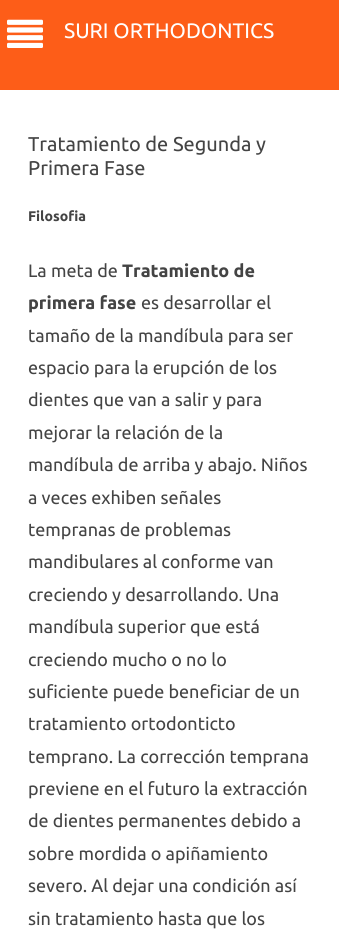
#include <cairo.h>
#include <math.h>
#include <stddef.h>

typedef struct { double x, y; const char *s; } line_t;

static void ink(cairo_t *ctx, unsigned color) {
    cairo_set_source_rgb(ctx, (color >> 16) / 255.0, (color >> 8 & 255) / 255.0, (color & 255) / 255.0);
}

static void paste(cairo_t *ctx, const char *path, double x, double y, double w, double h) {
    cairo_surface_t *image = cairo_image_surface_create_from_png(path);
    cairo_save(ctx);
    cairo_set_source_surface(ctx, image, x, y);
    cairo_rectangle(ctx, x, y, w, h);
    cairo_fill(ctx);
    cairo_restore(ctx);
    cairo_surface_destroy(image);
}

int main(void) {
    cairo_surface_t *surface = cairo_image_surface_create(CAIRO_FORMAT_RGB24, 339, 942);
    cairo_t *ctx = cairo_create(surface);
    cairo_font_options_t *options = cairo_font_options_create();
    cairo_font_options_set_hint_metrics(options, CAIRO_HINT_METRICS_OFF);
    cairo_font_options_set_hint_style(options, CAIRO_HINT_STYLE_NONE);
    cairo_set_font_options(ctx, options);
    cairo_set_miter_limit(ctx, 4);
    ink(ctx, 0xFFFFFF);
    cairo_paint(ctx);
    ink(ctx, 0xFD5D18);
    cairo_rectangle(ctx, 0, 0, 339, 90);
    cairo_fill(ctx);
    paste(ctx, "media/1.png", 7, 19, 36, 29);
    cairo_select_font_face(ctx, "Ubuntu", CAIRO_FONT_SLANT_NORMAL, CAIRO_FONT_WEIGHT_NORMAL);
    cairo_set_font_size(ctx, 21);
    ink(ctx, 0xFFFFFF);
    cairo_move_to(ctx, 64, 38);
    cairo_show_text(ctx, "SURI ORTHODONTICS");
    cairo_set_font_size(ctx, 20);
    ink(ctx, 0x444444);
    cairo_move_to(ctx, 28, 151);
    cairo_show_text(ctx, "Tratamiento de Segunda y");
    cairo_move_to(ctx, 28, 175);
    cairo_show_text(ctx, "Primera Fase");
    cairo_select_font_face(ctx, "Ubuntu", CAIRO_FONT_SLANT_NORMAL, CAIRO_FONT_WEIGHT_BOLD);
    cairo_set_font_size(ctx, 14);
    cairo_move_to(ctx, 28, 221);
    cairo_show_text(ctx, "Filosofia");
    cairo_select_font_face(ctx, "Ubuntu", CAIRO_FONT_SLANT_NORMAL, CAIRO_FONT_WEIGHT_NORMAL);
    cairo_set_font_size(ctx, 18);
    cairo_move_to(ctx, 28, 277);
    cairo_show_text(ctx, "La meta de");
    cairo_select_font_face(ctx, "Ubuntu", CAIRO_FONT_SLANT_NORMAL, CAIRO_FONT_WEIGHT_BOLD);
    cairo_move_to(ctx, 122, 277);
    cairo_show_text(ctx, "Tratamiento de");
    cairo_move_to(ctx, 28, 309);
    cairo_show_text(ctx, "primera fase");
    cairo_select_font_face(ctx, "Ubuntu", CAIRO_FONT_SLANT_NORMAL, CAIRO_FONT_WEIGHT_NORMAL);
    {
        static const line_t items[] = {
            {141, 309, "es desarrollar el"},
            {28, 342, "tamaño de la mandíbula para ser"},
            {28, 374, "espacio para la erupción de los"},
            {28, 406, "dientes que van a salir y para"},
            {28, 439, "mejorar la relación de la"},
            {28, 471, "mandíbula de arriba y abajo. Niños"},
            {28, 504, "a veces exhiben señales"},
            {28, 536, "tempranas de problemas"},
            {28, 568, "mandibulares al conforme van"},
            {28, 601, "creciendo y desarrollando. Una"},
            {28, 633, "mandíbula superior que está"},
            {28, 666, "creciendo mucho o no lo"},
            {28, 698, "suficiente puede beneficiar de un"},
            {28, 730, "tratamiento ortodonticto"},
            {28, 763, "temprano. La corrección temprana"},
            {28, 795, "previene en el futuro la extracción"},
            {28, 827, "de dientes permanentes debido a"},
            {28, 860, "sobre mordida o apiñamiento"},
            {28, 892, "severo. Al dejar una condición así"},
            {28, 925, "sin tratamiento hasta que los"},
        };
        for (size_t i = 0; i < sizeof items / sizeof *items; i++) {
            cairo_move_to(ctx, items[i].x, items[i].y);
            cairo_show_text(ctx, items[i].s);
        }
    }
    cairo_surface_write_to_png(surface, "image.png");
    cairo_font_options_destroy(options);
    cairo_destroy(ctx);
    cairo_surface_destroy(surface);
    return 0;
}
